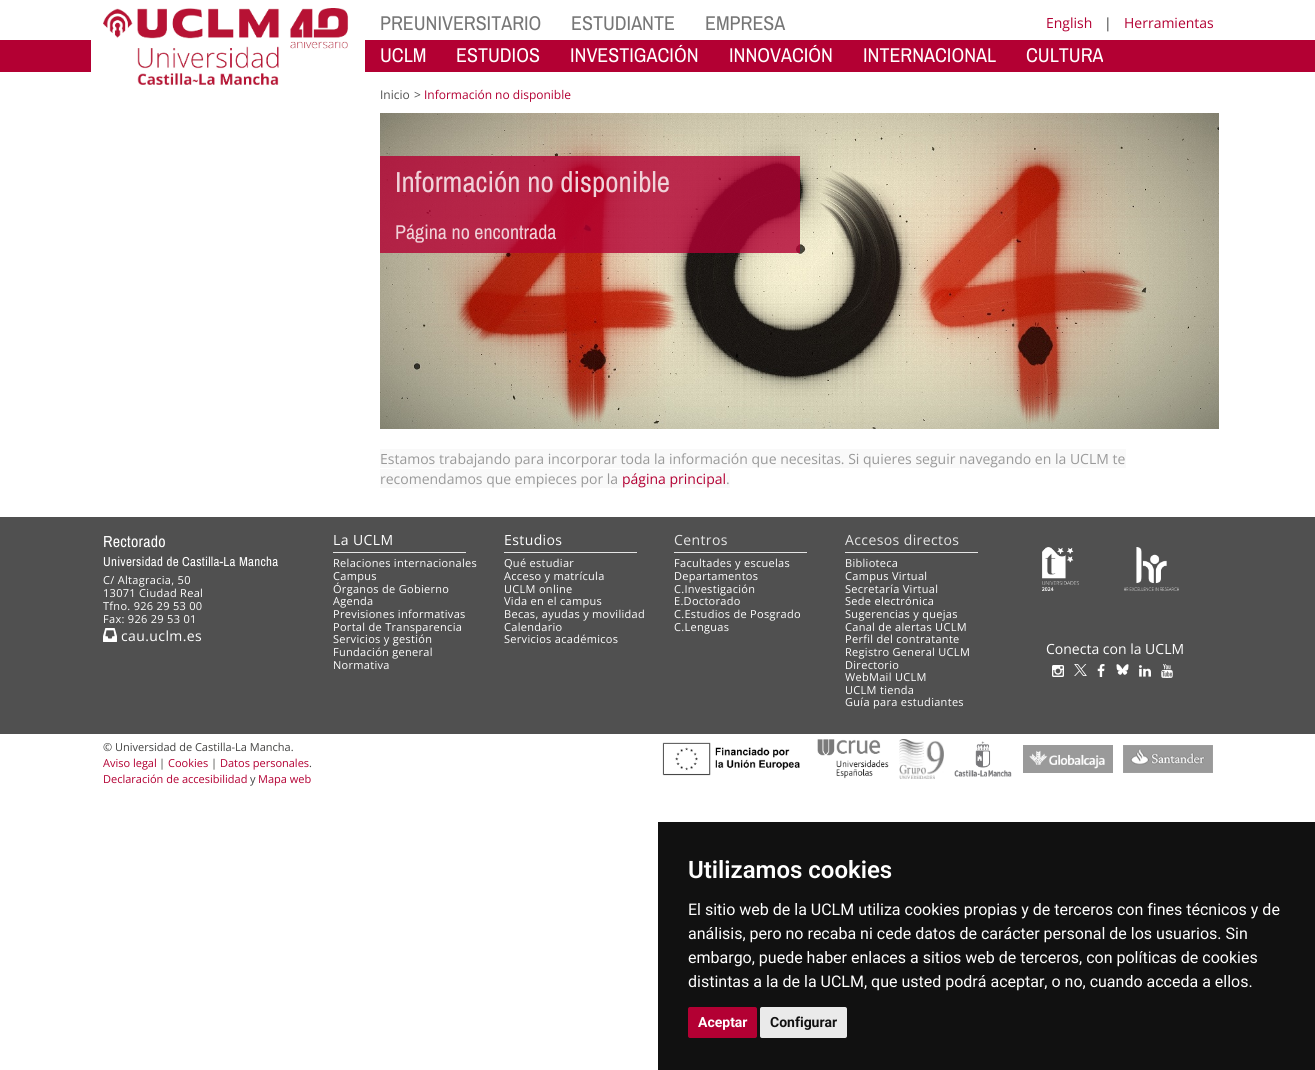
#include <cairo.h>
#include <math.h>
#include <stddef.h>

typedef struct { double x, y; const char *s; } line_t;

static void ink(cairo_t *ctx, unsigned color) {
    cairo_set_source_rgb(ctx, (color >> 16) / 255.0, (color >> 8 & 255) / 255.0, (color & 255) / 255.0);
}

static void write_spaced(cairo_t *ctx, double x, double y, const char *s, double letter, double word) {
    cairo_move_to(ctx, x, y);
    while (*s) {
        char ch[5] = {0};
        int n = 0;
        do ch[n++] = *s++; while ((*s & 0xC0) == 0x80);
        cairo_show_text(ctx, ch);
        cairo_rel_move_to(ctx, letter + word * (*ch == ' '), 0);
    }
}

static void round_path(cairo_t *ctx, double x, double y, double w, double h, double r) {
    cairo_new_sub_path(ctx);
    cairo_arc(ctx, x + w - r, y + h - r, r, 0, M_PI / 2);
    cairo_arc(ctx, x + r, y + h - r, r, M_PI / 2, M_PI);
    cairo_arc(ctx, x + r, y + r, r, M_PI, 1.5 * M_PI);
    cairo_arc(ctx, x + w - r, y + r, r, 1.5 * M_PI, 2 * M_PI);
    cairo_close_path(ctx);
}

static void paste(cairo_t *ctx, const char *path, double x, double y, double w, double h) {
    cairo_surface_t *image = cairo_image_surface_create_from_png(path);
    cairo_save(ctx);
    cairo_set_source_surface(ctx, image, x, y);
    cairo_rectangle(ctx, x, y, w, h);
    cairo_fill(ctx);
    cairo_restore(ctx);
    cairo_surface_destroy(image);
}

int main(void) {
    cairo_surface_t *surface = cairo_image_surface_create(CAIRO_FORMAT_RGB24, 1315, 1070);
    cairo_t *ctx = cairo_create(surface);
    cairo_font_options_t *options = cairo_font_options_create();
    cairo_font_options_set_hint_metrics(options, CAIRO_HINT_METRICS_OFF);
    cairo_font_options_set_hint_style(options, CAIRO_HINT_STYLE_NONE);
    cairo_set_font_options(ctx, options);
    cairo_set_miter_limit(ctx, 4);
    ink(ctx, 0xFFFFFF);
    cairo_paint(ctx);
    ink(ctx, 0xB30033);
    cairo_rectangle(ctx, 0, 40, 1315, 32);
    cairo_fill(ctx);
    ink(ctx, 0xFFFFFF);
    cairo_rectangle(ctx, 91, 40, 12, 32);
    cairo_fill(ctx);
    paste(ctx, "media/1.png", 103, 8, 262, 77);
    cairo_select_font_face(ctx, "Archivo Narrow", CAIRO_FONT_SLANT_NORMAL, CAIRO_FONT_WEIGHT_NORMAL);
    cairo_set_font_size(ctx, 20);
    ink(ctx, 0x767676);
    {
        static const line_t items[] = {
            {380, 30, "PREUNIVERSITARIO"},
            {571, 30, "ESTUDIANTE"},
            {705, 30, "EMPRESA"},
        };
        for (size_t i = 0; i < sizeof items / sizeof *items; i++) {
            cairo_move_to(ctx, items[i].x, items[i].y);
            cairo_show_text(ctx, items[i].s);
        }
    }
    cairo_select_font_face(ctx, "Open Sans", CAIRO_FONT_SLANT_NORMAL, CAIRO_FONT_WEIGHT_NORMAL);
    cairo_set_font_size(ctx, 14);
    ink(ctx, 0xB30033);
    cairo_move_to(ctx, 1046, 28);
    cairo_show_text(ctx, "English");
    ink(ctx, 0x333333);
    cairo_move_to(ctx, 1104, 28);
    cairo_show_text(ctx, "|");
    ink(ctx, 0xB30033);
    cairo_move_to(ctx, 1124, 28);
    cairo_show_text(ctx, "Herramientas");
    cairo_select_font_face(ctx, "Archivo Narrow", CAIRO_FONT_SLANT_NORMAL, CAIRO_FONT_WEIGHT_NORMAL);
    cairo_set_font_size(ctx, 20);
    ink(ctx, 0xFFFFFF);
    {
        static const line_t items[] = {
            {380, 62, "UCLM"},
            {456, 62, "ESTUDIOS"},
            {570, 62, "INVESTIGACIÓN"},
            {729, 62, "INNOVACIÓN"},
            {863, 62, "INTERNACIONAL"},
            {1026, 62, "CULTURA"},
        };
        for (size_t i = 0; i < sizeof items / sizeof *items; i++) {
            cairo_move_to(ctx, items[i].x, items[i].y);
            cairo_show_text(ctx, items[i].s);
        }
    }
    cairo_select_font_face(ctx, "Open Sans", CAIRO_FONT_SLANT_NORMAL, CAIRO_FONT_WEIGHT_NORMAL);
    cairo_set_font_size(ctx, 12);
    ink(ctx, 0x505050);
    cairo_move_to(ctx, 380, 99);
    cairo_show_text(ctx, "Inicio");
    cairo_move_to(ctx, 414, 99);
    cairo_show_text(ctx, ">");
    ink(ctx, 0xB30033);
    cairo_move_to(ctx, 424, 99);
    cairo_show_text(ctx, "Información no disponible");
    paste(ctx, "media/2.png", 380, 113, 839, 316);
    cairo_set_source_rgba(ctx, 0.702, 0, 0.2, 0.8);
    cairo_rectangle(ctx, 380, 156, 420, 97);
    cairo_fill(ctx);
    cairo_select_font_face(ctx, "Archivo Narrow", CAIRO_FONT_SLANT_NORMAL, CAIRO_FONT_WEIGHT_NORMAL);
    cairo_set_font_size(ctx, 29);
    ink(ctx, 0xF0D2D9);
    cairo_move_to(ctx, 395, 192);
    cairo_show_text(ctx, "Información no disponible");
    cairo_set_font_size(ctx, 20);
    cairo_move_to(ctx, 395, 239);
    cairo_show_text(ctx, "Página no encontrada");
    ink(ctx, 0xF9F9F9);
    cairo_rectangle(ctx, 380, 449, 746, 19);
    cairo_fill(ctx);
    cairo_select_font_face(ctx, "Open Sans", CAIRO_FONT_SLANT_NORMAL, CAIRO_FONT_WEIGHT_NORMAL);
    cairo_set_font_size(ctx, 14);
    ink(ctx, 0x999999);
    cairo_move_to(ctx, 380, 464);
    cairo_show_text(ctx, "Estamos trabajando para incorporar toda la información que necesitas. Si quieres seguir navegando en la UCLM te");
    ink(ctx, 0xF9F9F9);
    cairo_rectangle(ctx, 380, 469, 350, 19);
    cairo_fill(ctx);
    ink(ctx, 0x999999);
    cairo_move_to(ctx, 380, 484);
    cairo_show_text(ctx, "recomendamos que empieces por la");
    ink(ctx, 0xB30033);
    cairo_move_to(ctx, 622, 484);
    cairo_show_text(ctx, "página principal");
    ink(ctx, 0x999999);
    cairo_move_to(ctx, 726, 484);
    cairo_show_text(ctx, ".");
    ink(ctx, 0x505050);
    cairo_rectangle(ctx, 0, 517, 1315, 217);
    cairo_fill(ctx);
    cairo_select_font_face(ctx, "Archivo Narrow", CAIRO_FONT_SLANT_NORMAL, CAIRO_FONT_WEIGHT_NORMAL);
    cairo_set_font_size(ctx, 16);
    ink(ctx, 0xFFFFFF);
    write_spaced(ctx, 103, 547, "Rectorado", 0.25, 0);
    cairo_set_font_size(ctx, 13);
    write_spaced(ctx, 103, 566, "Universidad de Castilla-La Mancha", 0.25, 0);
    cairo_select_font_face(ctx, "Open Sans", CAIRO_FONT_SLANT_NORMAL, CAIRO_FONT_WEIGHT_NORMAL);
    cairo_set_font_size(ctx, 11);
    {
        static const line_t items[] = {
            {103, 584, "C/ Altagracia, 50"},
            {103, 597, "13071 Ciudad Real"},
            {103, 610, "Tfno. 926 29 53 00"},
            {103, 623, "Fax: 926 29 53 01"},
        };
        for (size_t i = 0; i < sizeof items / sizeof *items; i++) {
            write_spaced(ctx, items[i].x, items[i].y, items[i].s, 0.3, 0);
        }
    }
    paste(ctx, "media/3.png", 103, 628, 14, 14);
    cairo_set_font_size(ctx, 14);
    write_spaced(ctx, 121, 641, "cau.uclm.es", 0.4, 0);
    ink(ctx, 0xE6E6E6);
    cairo_rectangle(ctx, 333, 552, 133, 1);
    cairo_fill(ctx);
    ink(ctx, 0xFFFFFF);
    write_spaced(ctx, 333, 545, "La UCLM", 0.4, 0);
    cairo_set_font_size(ctx, 11);
    {
        static const line_t items[] = {
            {333, 567, "Relaciones internacionales"},
            {333, 580, "Campus"},
            {333, 593, "Órganos de Gobierno"},
            {333, 605, "Agenda"},
            {333, 618, "Previsiones informativas"},
            {333, 631, "Portal de Transparencia"},
            {333, 643, "Servicios y gestión"},
            {333, 656, "Fundación general"},
            {333, 669, "Normativa"},
        };
        for (size_t i = 0; i < sizeof items / sizeof *items; i++) {
            write_spaced(ctx, items[i].x, items[i].y, items[i].s, 0.3, 0);
        }
    }
    ink(ctx, 0xE6E6E6);
    cairo_rectangle(ctx, 504, 552, 133, 1);
    cairo_fill(ctx);
    cairo_set_font_size(ctx, 14);
    ink(ctx, 0xFFFFFF);
    write_spaced(ctx, 504, 545, "Estudios", 0.4, 0);
    cairo_set_font_size(ctx, 11);
    {
        static const line_t items[] = {
            {504, 567, "Qué estudiar"},
            {504, 580, "Acceso y matrícula"},
            {504, 593, "UCLM online"},
            {504, 605, "Vida en el campus"},
            {504, 618, "Becas, ayudas y movilidad"},
            {504, 631, "Calendario"},
            {504, 643, "Servicios académicos"},
        };
        for (size_t i = 0; i < sizeof items / sizeof *items; i++) {
            write_spaced(ctx, items[i].x, items[i].y, items[i].s, 0.3, 0);
        }
    }
    ink(ctx, 0xE6E6E6);
    cairo_rectangle(ctx, 674, 552, 133, 1);
    cairo_fill(ctx);
    cairo_set_font_size(ctx, 14);
    write_spaced(ctx, 674, 545, "Centros", 0.4, 0);
    cairo_set_font_size(ctx, 11);
    ink(ctx, 0xFFFFFF);
    {
        static const line_t items[] = {
            {674, 567, "Facultades y escuelas"},
            {674, 580, "Departamentos"},
            {674, 593, "C.Investigación"},
            {674, 605, "E.Doctorado"},
            {674, 618, "C.Estudios de Posgrado"},
            {674, 631, "C.Lenguas"},
        };
        for (size_t i = 0; i < sizeof items / sizeof *items; i++) {
            write_spaced(ctx, items[i].x, items[i].y, items[i].s, 0.3, 0);
        }
    }
    ink(ctx, 0xE6E6E6);
    cairo_rectangle(ctx, 845, 552, 133, 1);
    cairo_fill(ctx);
    cairo_set_font_size(ctx, 14);
    write_spaced(ctx, 845, 545, "Accesos directos", 0.4, 0);
    cairo_set_font_size(ctx, 11);
    ink(ctx, 0xFFFFFF);
    {
        static const line_t items[] = {
            {845, 567, "Biblioteca"},
            {845, 580, "Campus Virtual"},
            {845, 593, "Secretaría Virtual"},
            {845, 605, "Sede electrónica"},
            {845, 618, "Sugerencias y quejas"},
            {845, 631, "Canal de alertas UCLM"},
            {845, 643, "Perfil del contratante"},
            {845, 656, "Registro General UCLM"},
            {845, 669, "Directorio"},
            {845, 681, "WebMail UCLM"},
            {845, 694, "UCLM tienda"},
            {845, 706, "Guía para estudiantes"},
        };
        for (size_t i = 0; i < sizeof items / sizeof *items; i++) {
            write_spaced(ctx, items[i].x, items[i].y, items[i].s, 0.3, 0);
        }
    }
    paste(ctx, "media/4.png", 1042, 547, 37, 44);
    paste(ctx, "media/5.png", 1124, 547, 55, 44);
    cairo_set_font_size(ctx, 14);
    cairo_move_to(ctx, 1046, 654);
    cairo_show_text(ctx, "Conecta con la UCLM");
    paste(ctx, "media/6.png", 1052, 665, 12, 12);
    paste(ctx, "media/7.png", 1074, 664, 13, 12);
    paste(ctx, "media/8.png", 1097, 664, 8, 13);
    paste(ctx, "media/9.png", 1116, 664, 13, 11);
    paste(ctx, "media/10.png", 1139, 665, 12, 12);
    paste(ctx, "media/11.png", 1161, 664, 12, 14);
    cairo_set_font_size(ctx, 11);
    ink(ctx, 0x424241);
    cairo_move_to(ctx, 103, 751);
    cairo_show_text(ctx, "© Universidad de Castilla-La Mancha.");
    ink(ctx, 0xB30033);
    cairo_move_to(ctx, 103, 767);
    cairo_show_text(ctx, "Aviso legal");
    ink(ctx, 0x424241);
    cairo_move_to(ctx, 159, 767);
    cairo_show_text(ctx, "|");
    ink(ctx, 0xB30033);
    cairo_move_to(ctx, 168, 767);
    cairo_show_text(ctx, "Cookies");
    ink(ctx, 0x424241);
    cairo_move_to(ctx, 211, 767);
    cairo_show_text(ctx, "|");
    ink(ctx, 0xB30033);
    cairo_move_to(ctx, 220, 767);
    cairo_show_text(ctx, "Datos personales");
    ink(ctx, 0x424241);
    cairo_move_to(ctx, 309, 767);
    cairo_show_text(ctx, ".");
    ink(ctx, 0xB30033);
    cairo_move_to(ctx, 103, 783);
    cairo_show_text(ctx, "Declaración de accesibilidad");
    ink(ctx, 0x424241);
    cairo_move_to(ctx, 250, 783);
    cairo_show_text(ctx, "y");
    ink(ctx, 0xB30033);
    cairo_move_to(ctx, 258, 783);
    cairo_show_text(ctx, "Mapa web");
    paste(ctx, "media/12.png", 662, 742, 138, 34);
    paste(ctx, "media/13.png", 817, 739, 72, 40);
    paste(ctx, "media/14.png", 899, 739, 45, 40);
    paste(ctx, "media/15.png", 954, 741, 58, 36);
    paste(ctx, "media/16.png", 1023, 745, 90, 28);
    paste(ctx, "media/17.png", 1123, 745, 90, 28);
    ink(ctx, 0x111111);
    cairo_rectangle(ctx, 658, 822, 657, 248);
    cairo_fill(ctx);
    cairo_select_font_face(ctx, "Roboto SemiBold", CAIRO_FONT_SLANT_NORMAL, CAIRO_FONT_WEIGHT_NORMAL);
    cairo_set_font_size(ctx, 24);
    ink(ctx, 0xFFFFFF);
    cairo_move_to(ctx, 688, 878);
    cairo_show_text(ctx, "Utilizamos cookies");
    cairo_select_font_face(ctx, "Roboto", CAIRO_FONT_SLANT_NORMAL, CAIRO_FONT_WEIGHT_NORMAL);
    cairo_set_font_size(ctx, 16);
    {
        static const line_t items[] = {
            {688, 915, "El sitio web de la UCLM utiliza cookies propias y de terceros con fines técnicos y de"},
            {688, 939, "análisis, pero no recaba ni cede datos de carácter personal de los usuarios. Sin"},
            {688, 963, "embargo, puede haber enlaces a sitios web de terceros, con políticas de cookies"},
            {688, 987, "distintas a la de la UCLM, que usted podrá aceptar, o no, cuando acceda a ellos."},
        };
        for (size_t i = 0; i < sizeof items / sizeof *items; i++) {
            cairo_move_to(ctx, items[i].x, items[i].y);
            cairo_show_text(ctx, items[i].s);
        }
    }
    ink(ctx, 0xB30033);
    round_path(ctx, 688, 1007, 69, 31, 2);
    cairo_fill(ctx);
    cairo_select_font_face(ctx, "Roboto", CAIRO_FONT_SLANT_NORMAL, CAIRO_FONT_WEIGHT_BOLD);
    cairo_set_font_size(ctx, 14);
    ink(ctx, 0xFFFFFF);
    cairo_move_to(ctx, 698, 1027);
    cairo_show_text(ctx, "Aceptar");
    ink(ctx, 0xEAEAEA);
    round_path(ctx, 760, 1007, 87, 31, 2);
    cairo_fill(ctx);
    ink(ctx, 0x111111);
    cairo_move_to(ctx, 770, 1027);
    cairo_show_text(ctx, "Configurar");
    cairo_surface_write_to_png(surface, "image.png");
    cairo_font_options_destroy(options);
    cairo_destroy(ctx);
    cairo_surface_destroy(surface);
    return 0;
}
